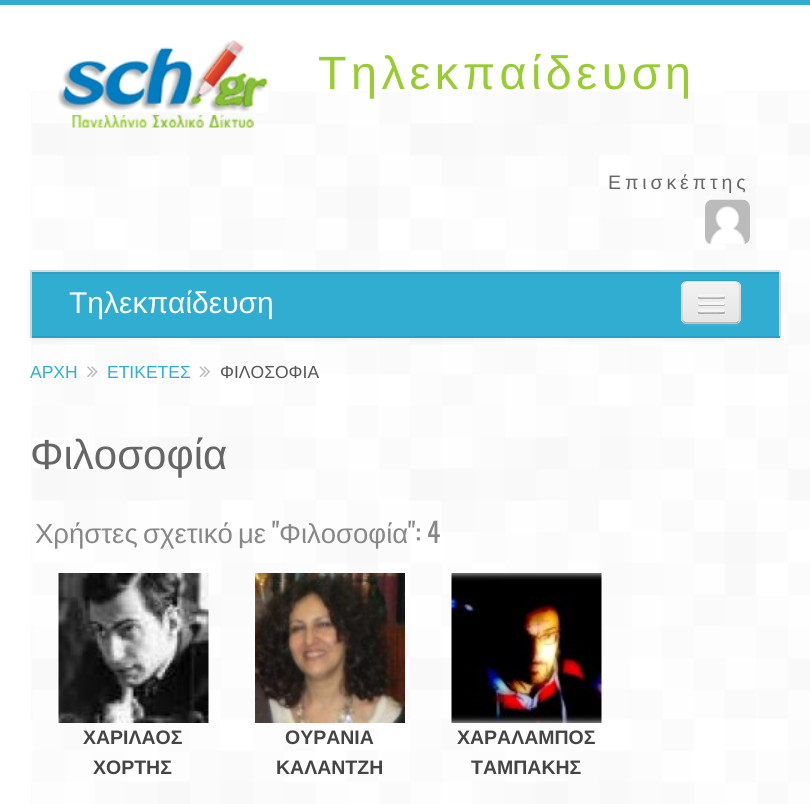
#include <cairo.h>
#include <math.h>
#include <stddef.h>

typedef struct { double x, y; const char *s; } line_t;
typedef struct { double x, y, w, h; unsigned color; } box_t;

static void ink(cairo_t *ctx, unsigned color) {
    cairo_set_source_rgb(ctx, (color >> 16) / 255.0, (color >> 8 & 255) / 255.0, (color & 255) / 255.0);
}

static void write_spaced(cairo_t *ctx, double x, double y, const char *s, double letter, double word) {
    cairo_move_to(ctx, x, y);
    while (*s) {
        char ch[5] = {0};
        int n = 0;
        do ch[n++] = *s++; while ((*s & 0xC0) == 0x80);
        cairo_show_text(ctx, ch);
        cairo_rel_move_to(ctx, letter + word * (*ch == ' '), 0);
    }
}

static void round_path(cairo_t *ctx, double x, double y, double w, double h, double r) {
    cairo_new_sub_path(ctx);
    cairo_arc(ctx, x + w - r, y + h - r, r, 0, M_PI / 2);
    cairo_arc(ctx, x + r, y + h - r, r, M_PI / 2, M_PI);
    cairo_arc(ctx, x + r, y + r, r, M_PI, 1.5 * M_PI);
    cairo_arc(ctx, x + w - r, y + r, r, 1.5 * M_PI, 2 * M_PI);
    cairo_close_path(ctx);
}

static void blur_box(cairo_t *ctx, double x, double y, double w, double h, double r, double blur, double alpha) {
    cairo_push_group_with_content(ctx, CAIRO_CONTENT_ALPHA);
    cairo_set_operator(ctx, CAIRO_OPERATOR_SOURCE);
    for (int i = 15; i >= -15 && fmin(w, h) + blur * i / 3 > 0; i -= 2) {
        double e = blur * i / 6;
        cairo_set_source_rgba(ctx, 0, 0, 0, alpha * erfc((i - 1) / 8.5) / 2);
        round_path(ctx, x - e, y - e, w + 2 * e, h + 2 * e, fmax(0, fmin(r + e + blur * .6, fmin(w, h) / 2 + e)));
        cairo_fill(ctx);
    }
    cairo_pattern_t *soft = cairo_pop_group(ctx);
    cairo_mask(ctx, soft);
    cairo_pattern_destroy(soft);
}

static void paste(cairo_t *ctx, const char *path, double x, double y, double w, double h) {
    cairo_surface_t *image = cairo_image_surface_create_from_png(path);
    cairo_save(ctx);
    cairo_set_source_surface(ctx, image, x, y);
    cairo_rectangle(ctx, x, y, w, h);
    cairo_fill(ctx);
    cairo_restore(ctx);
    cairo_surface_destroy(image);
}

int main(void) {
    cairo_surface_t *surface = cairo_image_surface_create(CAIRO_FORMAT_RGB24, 810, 804);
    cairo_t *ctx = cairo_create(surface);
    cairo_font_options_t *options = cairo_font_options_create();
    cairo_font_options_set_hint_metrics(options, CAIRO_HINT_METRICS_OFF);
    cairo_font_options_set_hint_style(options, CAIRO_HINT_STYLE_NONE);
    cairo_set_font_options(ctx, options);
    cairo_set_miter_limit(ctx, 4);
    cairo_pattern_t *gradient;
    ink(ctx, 0xFFFFFF);
    cairo_paint(ctx);
    paste(ctx, "media/1.png", 31, 91, 779, 713);
    ink(ctx, 0x30ADD1);
    cairo_rectangle(ctx, 0, 0, 810, 5);
    cairo_fill(ctx);
    ink(ctx, 0xDDDDDD);
    cairo_rectangle(ctx, 30, 270, 750, 2);
    cairo_fill(ctx);
    paste(ctx, "media/2.png", 57, 38, 211, 90);
    cairo_select_font_face(ctx, "Liberation Sans", CAIRO_FONT_SLANT_NORMAL, CAIRO_FONT_WEIGHT_NORMAL);
    cairo_set_font_size(ctx, 46.75);
    ink(ctx, 0x99CC33);
    write_spaced(ctx, 318, 89, "Τηλεκπαίδευση", 4.5, 0);
    cairo_set_font_size(ctx, 19.5);
    ink(ctx, 0x666666);
    write_spaced(ctx, 608, 189, "Επισκέπτης", 3.9, 0);
    paste(ctx, "media/3.png", 705, 199, 45, 45);
    ink(ctx, 0x000000);
    blur_box(ctx, 30, 273, 750, 66, 0, 3, 0.07);
    {
        static const box_t items[] = {
            {32, 274, 747, 62, 0x30ADD1},
            {30, 272, 750, 2, 0x29A1C4},
            {779, 272, 2, 66, 0xD4D4D4},
            {30, 336, 750, 2, 0x29A1C4},
            {30, 272, 2, 66, 0xD4D4D4},
        };
        for (size_t i = 0; i < sizeof items / sizeof *items; i++) {
            ink(ctx, items[i].color);
            cairo_rectangle(ctx, items[i].x, items[i].y, items[i].w, items[i].h);
            cairo_fill(ctx);
        }
    }
    cairo_set_font_size(ctx, 30);
    ink(ctx, 0xFFFFFF);
    cairo_move_to(ctx, 69, 313);
    cairo_show_text(ctx, "Τηλεκπαίδευση");
    ink(ctx, 0x40B3D4);
    cairo_new_path(ctx);
    cairo_move_to(ctx, 681, 318);
    cairo_curve_to(ctx, 681, 327, 687, 326, 695, 326);
    cairo_line_to(ctx, 727, 326);
    cairo_curve_to(ctx, 735, 326, 741, 327, 741, 318);
    cairo_curve_to(ctx, 741, 321, 738, 324, 735, 324);
    cairo_line_to(ctx, 687, 324);
    cairo_curve_to(ctx, 684, 324, 681, 321, 681, 318);
    cairo_close_path(ctx);
    cairo_fill(ctx);
    ink(ctx, 0xEDEDED);
    round_path(ctx, 681, 281, 60, 43, 6);
    cairo_fill(ctx);
    cairo_save(ctx);
    round_path(ctx, 681, 281, 60, 43, 6);
    cairo_clip(ctx);
    gradient = cairo_pattern_create_linear(711, 282, 711, 323);
    cairo_pattern_add_color_stop_rgba(gradient, 0, 0.949, 0.949, 0.949, 1);
    cairo_pattern_add_color_stop_rgba(gradient, 1, 0.898, 0.898, 0.898, 1);
    cairo_set_source(ctx, gradient);
    cairo_pattern_destroy(gradient);
    cairo_rectangle(ctx, 681, 282, 60, 41);
    cairo_fill(ctx);
    cairo_restore(ctx);
    cairo_new_path(ctx);
    cairo_move_to(ctx, 738.5, 321.5);
    cairo_curve_to(ctx, 737.5, 322.5, 736.5, 323, 735, 323);
    cairo_line_to(ctx, 687, 323);
    cairo_curve_to(ctx, 685.5, 323, 684.5, 322.5, 683.5, 321.5);
    cairo_set_source_rgba(ctx, 0, 0, 0, 0.25);
    cairo_set_line_width(ctx, 1.5);
    cairo_stroke(ctx);
    cairo_new_path(ctx);
    cairo_move_to(ctx, 683.5, 321.5);
    cairo_curve_to(ctx, 682.5, 320.5, 682, 319.5, 682, 318);
    cairo_line_to(ctx, 682, 286.5);
    cairo_curve_to(ctx, 682, 285, 682.5, 284, 683.5, 283);
    cairo_curve_to(ctx, 684.5, 282, 685.5, 281, 687, 281);
    cairo_line_to(ctx, 735, 281);
    cairo_curve_to(ctx, 736.5, 281, 737.5, 282, 738.5, 283);
    cairo_curve_to(ctx, 739.5, 284, 740, 285, 740, 286.5);
    cairo_line_to(ctx, 740, 318);
    cairo_curve_to(ctx, 740, 319.5, 739.5, 320.5, 738.5, 321.5);
    cairo_set_source_rgba(ctx, 0, 0, 0, 0.1);
    cairo_stroke(ctx);
    ink(ctx, 0xB2B2B2);
    cairo_new_path(ctx);
    cairo_move_to(ctx, 698, 297);
    cairo_curve_to(ctx, 696.5, 300, 703.5, 299, 703.5, 299);
    cairo_line_to(ctx, 724, 299);
    cairo_curve_to(ctx, 725, 298.5, 725.5, 297, 724.5, 296);
    cairo_line_to(ctx, 723, 297);
    cairo_curve_to(ctx, 721, 297.5, 699, 297.5, 698, 297);
    cairo_close_path(ctx);
    cairo_fill(ctx);
    ink(ctx, 0xF5F5F5);
    round_path(ctx, 698, 294, 27, 3, 1.5);
    cairo_fill(ctx);
    ink(ctx, 0xB0B0B0);
    cairo_new_path(ctx);
    cairo_move_to(ctx, 698, 304);
    cairo_curve_to(ctx, 697.5, 307, 703, 306, 703.5, 306);
    cairo_line_to(ctx, 723.5, 306);
    cairo_curve_to(ctx, 725, 306, 725.5, 304, 724.5, 303.5);
    cairo_line_to(ctx, 723.5, 304.5);
    cairo_curve_to(ctx, 722, 305, 698.5, 304.5, 698, 304);
    cairo_close_path(ctx);
    cairo_fill(ctx);
    ink(ctx, 0xF5F5F5);
    round_path(ctx, 698, 302, 27, 3, 1.5);
    cairo_fill(ctx);
    ink(ctx, 0xAEAEAE);
    cairo_new_path(ctx);
    cairo_move_to(ctx, 698, 312);
    cairo_curve_to(ctx, 696.5, 315, 703.5, 314, 703.5, 314);
    cairo_line_to(ctx, 724, 314);
    cairo_curve_to(ctx, 725, 313.5, 725.5, 312, 724.5, 311);
    cairo_line_to(ctx, 723, 312);
    cairo_curve_to(ctx, 721, 312.5, 699, 312.5, 698, 312);
    cairo_close_path(ctx);
    cairo_fill(ctx);
    ink(ctx, 0xF5F5F5);
    round_path(ctx, 698, 309, 27, 3, 1.5);
    cairo_fill(ctx);
    cairo_set_font_size(ctx, 17.5);
    ink(ctx, 0x30ADD1);
    cairo_move_to(ctx, 30, 378);
    cairo_show_text(ctx, "ΑΡΧΗ");
    paste(ctx, "media/4.png", 87, 366, 11, 11);
    cairo_move_to(ctx, 107, 378);
    cairo_show_text(ctx, "ΕΤΙΚΕΤΕΣ");
    paste(ctx, "media/5.png", 199, 366, 11, 11);
    ink(ctx, 0x555555);
    cairo_move_to(ctx, 220, 378);
    cairo_show_text(ctx, "ΦΙΛΟΣΟΦΙΑ");
    cairo_set_font_size(ctx, 42);
    ink(ctx, 0x666666);
    cairo_move_to(ctx, 30, 469);
    cairo_show_text(ctx, "Φιλοσοφία");
    cairo_set_font_size(ctx, 27.5);
    ink(ctx, 0x888888);
    {
        static const line_t items[] = {
            {35, 543, "Χρήστες"},
            {143, 543, "σχετικό"},
            {238, 543, "με"},
        };
        for (size_t i = 0; i < sizeof items / sizeof *items; i++) {
            cairo_move_to(ctx, items[i].x, items[i].y);
            cairo_show_text(ctx, items[i].s);
        }
    }
    cairo_select_font_face(ctx, "Oswald", CAIRO_FONT_SLANT_NORMAL, CAIRO_FONT_WEIGHT_NORMAL);
    cairo_move_to(ctx, 272, 543);
    cairo_show_text(ctx, "\"");
    cairo_select_font_face(ctx, "Liberation Sans", CAIRO_FONT_SLANT_NORMAL, CAIRO_FONT_WEIGHT_NORMAL);
    cairo_move_to(ctx, 279, 543);
    cairo_show_text(ctx, "Φιλοσοφία");
    cairo_select_font_face(ctx, "Oswald", CAIRO_FONT_SLANT_NORMAL, CAIRO_FONT_WEIGHT_NORMAL);
    cairo_move_to(ctx, 408, 543);
    cairo_show_text(ctx, "\": 4");
    paste(ctx, "media/6.png", 58, 573, 151, 150);
    cairo_select_font_face(ctx, "Liberation Sans", CAIRO_FONT_SLANT_NORMAL, CAIRO_FONT_WEIGHT_BOLD);
    cairo_set_font_size(ctx, 19.5);
    ink(ctx, 0x444444);
    cairo_move_to(ctx, 83, 744);
    cairo_show_text(ctx, "ΧΑΡΙΛΑΟΣ");
    cairo_move_to(ctx, 93, 774);
    cairo_show_text(ctx, "ΧΟΡΤΗΣ");
    paste(ctx, "media/7.png", 255, 573, 150, 150);
    cairo_move_to(ctx, 285, 744);
    cairo_show_text(ctx, "ΟΥΡΑΝΙΑ");
    cairo_move_to(ctx, 276, 774);
    cairo_show_text(ctx, "ΚΑΛΑΝΤΖΗ");
    paste(ctx, "media/8.png", 451, 573, 151, 150);
    cairo_move_to(ctx, 457, 744);
    cairo_show_text(ctx, "ΧΑΡΑΛΑΜΠΟΣ");
    cairo_move_to(ctx, 471, 774);
    cairo_show_text(ctx, "ΤΑΜΠΑΚΗΣ");
    cairo_surface_write_to_png(surface, "image.png");
    cairo_font_options_destroy(options);
    cairo_destroy(ctx);
    cairo_surface_destroy(surface);
    return 0;
}
